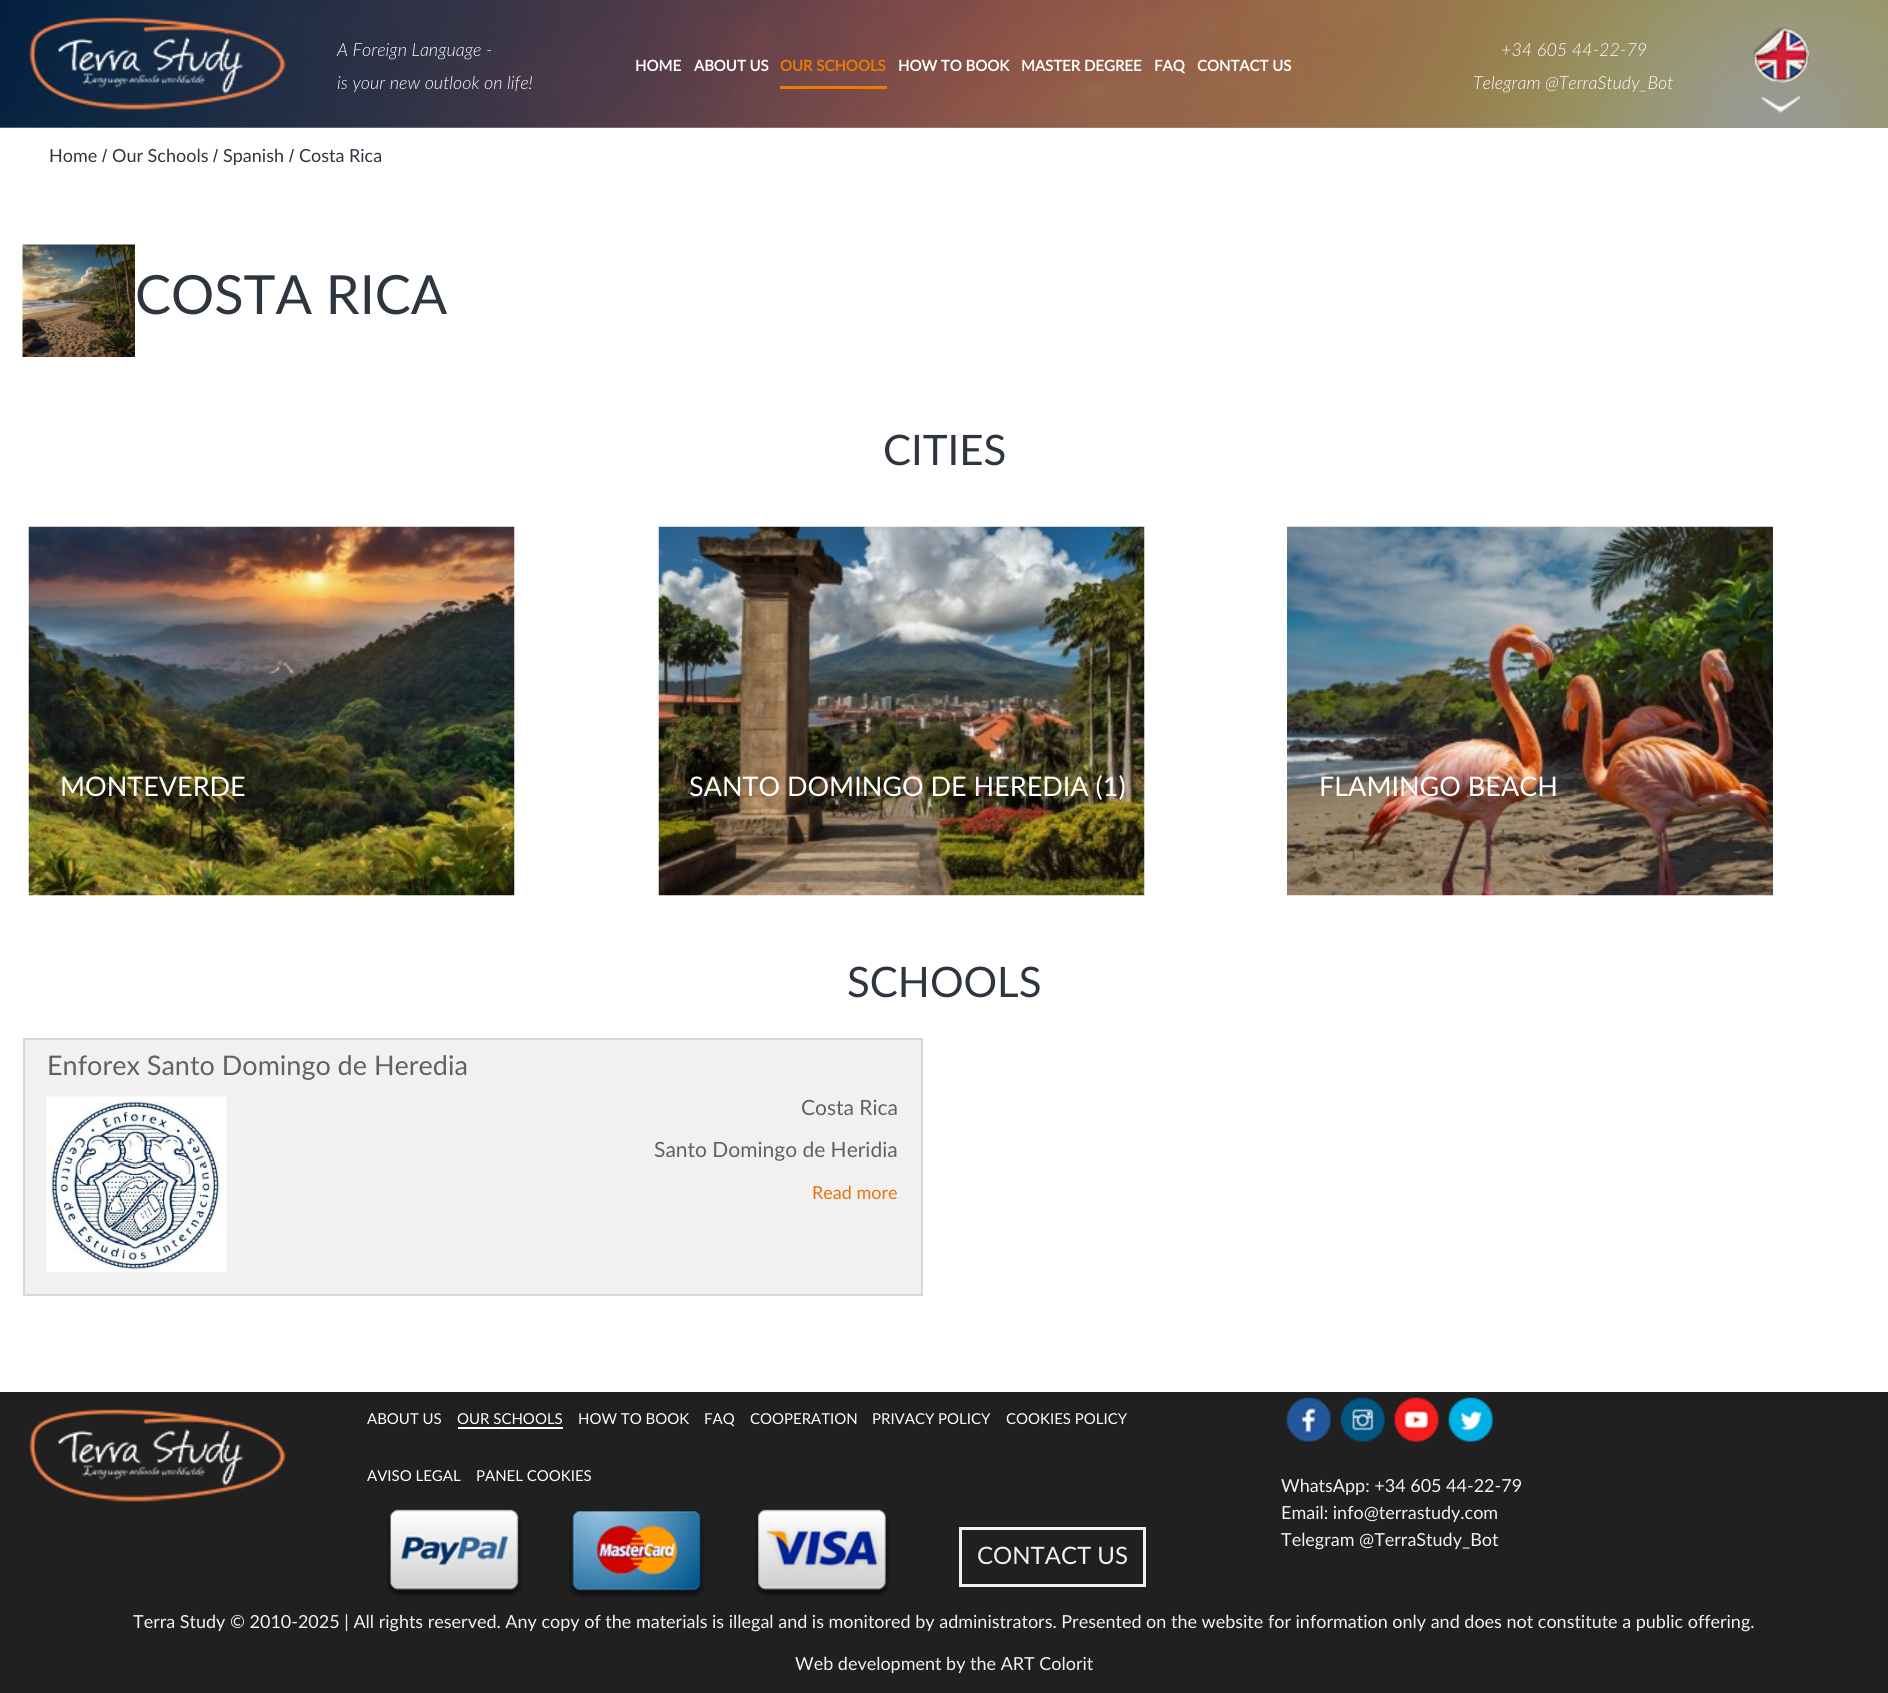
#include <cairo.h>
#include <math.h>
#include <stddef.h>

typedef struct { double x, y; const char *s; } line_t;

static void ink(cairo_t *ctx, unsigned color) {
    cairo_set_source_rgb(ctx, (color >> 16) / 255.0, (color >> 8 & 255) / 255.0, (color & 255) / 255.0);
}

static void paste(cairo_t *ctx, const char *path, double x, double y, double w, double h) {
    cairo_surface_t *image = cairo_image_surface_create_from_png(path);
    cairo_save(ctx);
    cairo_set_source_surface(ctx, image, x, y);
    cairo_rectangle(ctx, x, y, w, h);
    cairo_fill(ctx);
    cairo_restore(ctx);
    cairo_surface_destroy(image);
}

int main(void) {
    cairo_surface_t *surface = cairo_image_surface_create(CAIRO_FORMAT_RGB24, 1888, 1693);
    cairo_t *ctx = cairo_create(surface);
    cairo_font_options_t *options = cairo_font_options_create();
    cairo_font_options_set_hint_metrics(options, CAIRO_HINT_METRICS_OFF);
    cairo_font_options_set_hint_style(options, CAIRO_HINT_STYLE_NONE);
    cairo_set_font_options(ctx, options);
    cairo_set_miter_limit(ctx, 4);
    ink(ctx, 0xFFFFFF);
    cairo_paint(ctx);
    ink(ctx, 0x999999);
    cairo_rectangle(ctx, 0, 127, 1888, 1);
    cairo_fill(ctx);
    paste(ctx, "media/1.png", 0, 0, 1888, 128);
    paste(ctx, "media/2.png", 29, 17, 257, 93);
    cairo_select_font_face(ctx, "Lato Light", CAIRO_FONT_SLANT_ITALIC, CAIRO_FONT_WEIGHT_NORMAL);
    cairo_set_font_size(ctx, 18);
    ink(ctx, 0xFFFFFF);
    cairo_move_to(ctx, 337, 56);
    cairo_show_text(ctx, "A Foreign Language -");
    cairo_move_to(ctx, 337, 89);
    cairo_show_text(ctx, "is your new outlook on life!");
    cairo_select_font_face(ctx, "Lato", CAIRO_FONT_SLANT_NORMAL, CAIRO_FONT_WEIGHT_BOLD);
    cairo_set_font_size(ctx, 15);
    cairo_move_to(ctx, 635, 71);
    cairo_show_text(ctx, "HOME");
    cairo_move_to(ctx, 694, 71);
    cairo_show_text(ctx, "ABOUT US");
    ink(ctx, 0xEA7C03);
    cairo_rectangle(ctx, 780, 86, 107, 3);
    cairo_fill(ctx);
    cairo_move_to(ctx, 780, 71);
    cairo_show_text(ctx, "OUR SCHOOLS");
    ink(ctx, 0xFFFFFF);
    {
        static const line_t items[] = {
            {898, 71, "HOW TO BOOK"},
            {1021, 71, "MASTER DEGREE"},
            {1154, 71, "FAQ"},
            {1197, 71, "CONTACT US"},
        };
        for (size_t i = 0; i < sizeof items / sizeof *items; i++) {
            cairo_move_to(ctx, items[i].x, items[i].y);
            cairo_show_text(ctx, items[i].s);
        }
    }
    cairo_select_font_face(ctx, "Lato Light", CAIRO_FONT_SLANT_ITALIC, CAIRO_FONT_WEIGHT_NORMAL);
    cairo_set_font_size(ctx, 18);
    cairo_move_to(ctx, 1501, 56);
    cairo_show_text(ctx, "+34 605 44-22-79");
    cairo_move_to(ctx, 1473, 89);
    cairo_show_text(ctx, "Telegram @TerraStudy_Bot");
    paste(ctx, "media/3.png", 1753, 27, 56, 56);
    paste(ctx, "media/4.png", 1761, 95, 39, 18);
    cairo_select_font_face(ctx, "Lato", CAIRO_FONT_SLANT_NORMAL, CAIRO_FONT_WEIGHT_NORMAL);
    ink(ctx, 0x2E353F);
    cairo_move_to(ctx, 49, 162);
    cairo_show_text(ctx, "Home");
    cairo_select_font_face(ctx, "Liberation Sans", CAIRO_FONT_SLANT_NORMAL, CAIRO_FONT_WEIGHT_NORMAL);
    ink(ctx, 0x333333);
    cairo_move_to(ctx, 102, 162);
    cairo_show_text(ctx, "/");
    cairo_select_font_face(ctx, "Lato", CAIRO_FONT_SLANT_NORMAL, CAIRO_FONT_WEIGHT_NORMAL);
    ink(ctx, 0x2E353F);
    cairo_move_to(ctx, 112, 162);
    cairo_show_text(ctx, "Our Schools");
    cairo_select_font_face(ctx, "Liberation Sans", CAIRO_FONT_SLANT_NORMAL, CAIRO_FONT_WEIGHT_NORMAL);
    ink(ctx, 0x333333);
    cairo_move_to(ctx, 213, 162);
    cairo_show_text(ctx, "/");
    cairo_select_font_face(ctx, "Lato", CAIRO_FONT_SLANT_NORMAL, CAIRO_FONT_WEIGHT_NORMAL);
    ink(ctx, 0x2E353F);
    cairo_move_to(ctx, 223, 162);
    cairo_show_text(ctx, "Spanish");
    cairo_select_font_face(ctx, "Liberation Sans", CAIRO_FONT_SLANT_NORMAL, CAIRO_FONT_WEIGHT_NORMAL);
    ink(ctx, 0x333333);
    cairo_move_to(ctx, 289, 162);
    cairo_show_text(ctx, "/");
    cairo_select_font_face(ctx, "Lato", CAIRO_FONT_SLANT_NORMAL, CAIRO_FONT_WEIGHT_NORMAL);
    ink(ctx, 0x2E353F);
    cairo_move_to(ctx, 299, 162);
    cairo_show_text(ctx, "Costa Rica");
    paste(ctx, "media/5.png", 22, 244, 113, 113);
    cairo_set_font_size(ctx, 54);
    cairo_move_to(ctx, 135, 314);
    cairo_show_text(ctx, "COSTA RICA");
    cairo_set_font_size(ctx, 42);
    cairo_move_to(ctx, 883, 465);
    cairo_show_text(ctx, "CITIES");
    paste(ctx, "media/6.png", 28, 526, 487, 370);
    cairo_set_font_size(ctx, 27);
    ink(ctx, 0xFFFFFF);
    cairo_move_to(ctx, 60, 796);
    cairo_show_text(ctx, "MONTEVERDE");
    paste(ctx, "media/7.png", 658, 526, 487, 370);
    cairo_move_to(ctx, 689, 796);
    cairo_show_text(ctx, "SANTO DOMINGO DE HEREDIA (1)");
    paste(ctx, "media/8.png", 1287, 526, 486, 370);
    cairo_move_to(ctx, 1319, 796);
    cairo_show_text(ctx, "FLAMINGO BEACH");
    cairo_set_font_size(ctx, 42);
    ink(ctx, 0x2E353F);
    cairo_move_to(ctx, 847, 997);
    cairo_show_text(ctx, "SCHOOLS");
    ink(ctx, 0xF1F1F1);
    cairo_rectangle(ctx, 24, 1039, 898, 256);
    cairo_fill_preserve(ctx);
    ink(ctx, 0xD9D6D6);
    cairo_stroke(ctx);
    cairo_set_font_size(ctx, 27);
    ink(ctx, 0x616161);
    cairo_move_to(ctx, 47, 1075);
    cairo_show_text(ctx, "Enforex Santo Domingo de Heredia");
    paste(ctx, "media/9.png", 46, 1096, 181, 176);
    cairo_set_font_size(ctx, 21);
    cairo_move_to(ctx, 801, 1115);
    cairo_show_text(ctx, "Costa Rica");
    cairo_move_to(ctx, 654, 1157);
    cairo_show_text(ctx, "Santo Domingo de Heridia");
    cairo_set_font_size(ctx, 18);
    ink(ctx, 0xEC7106);
    cairo_move_to(ctx, 812, 1199);
    cairo_show_text(ctx, "Read more");
    ink(ctx, 0x202020);
    cairo_rectangle(ctx, 0, 1392, 1888, 301);
    cairo_fill(ctx);
    paste(ctx, "media/10.png", 29, 1409, 257, 93);
    cairo_set_font_size(ctx, 15);
    ink(ctx, 0xFFFFFF);
    cairo_move_to(ctx, 367, 1424);
    cairo_show_text(ctx, "ABOUT US");
    cairo_move_to(ctx, 457, 1424);
    cairo_show_text(ctx, "OUR SCHOOLS");
    cairo_rectangle(ctx, 458, 1427, 105, 2);
    cairo_fill(ctx);
    {
        static const line_t items[] = {
            {578, 1424, "HOW TO BOOK"},
            {704, 1424, "FAQ"},
            {750, 1424, "COOPERATION"},
            {872, 1424, "PRIVACY POLICY"},
            {1006, 1424, "COOKIES POLICY"},
            {367, 1481, "AVISO LEGAL"},
            {476, 1481, "PANEL COOKIES"},
        };
        for (size_t i = 0; i < sizeof items / sizeof *items; i++) {
            cairo_move_to(ctx, items[i].x, items[i].y);
            cairo_show_text(ctx, items[i].s);
        }
    }
    paste(ctx, "media/11.png", 387, 1509, 135, 87);
    paste(ctx, "media/12.png", 569, 1510, 135, 87);
    paste(ctx, "media/13.png", 755, 1509, 134, 87);
    cairo_rectangle(ctx, 960.5, 1528.5, 184, 57);
    ink(ctx, 0xF2F2F2);
    cairo_set_line_width(ctx, 3);
    cairo_stroke(ctx);
    cairo_set_font_size(ctx, 24);
    cairo_move_to(ctx, 977, 1564);
    cairo_show_text(ctx, "CONTACT US");
    paste(ctx, "media/14.png", 1286, 1397, 45, 45);
    paste(ctx, "media/15.png", 1340, 1397, 45, 45);
    paste(ctx, "media/16.png", 1394, 1397, 45, 45);
    paste(ctx, "media/17.png", 1448, 1397, 45, 45);
    cairo_set_font_size(ctx, 18);
    {
        static const line_t items[] = {
            {1281, 1492, "WhatsApp: +34 605 44-22-79"},
            {1281, 1519, "Email: info@terrastudy.com"},
            {1281, 1546, "Telegram @TerraStudy_Bot"},
            {133, 1628, "Terra Study © 2010-2025 | All rights reserved. Any copy of the materials is illegal and is monitored by administrators. Presented on the website for information only and does not constitute a public offering."},
            {795, 1670, "Web development by the ART Colorit"},
        };
        for (size_t i = 0; i < sizeof items / sizeof *items; i++) {
            cairo_move_to(ctx, items[i].x, items[i].y);
            cairo_show_text(ctx, items[i].s);
        }
    }
    cairo_surface_write_to_png(surface, "image.png");
    cairo_font_options_destroy(options);
    cairo_destroy(ctx);
    cairo_surface_destroy(surface);
    return 0;
}
